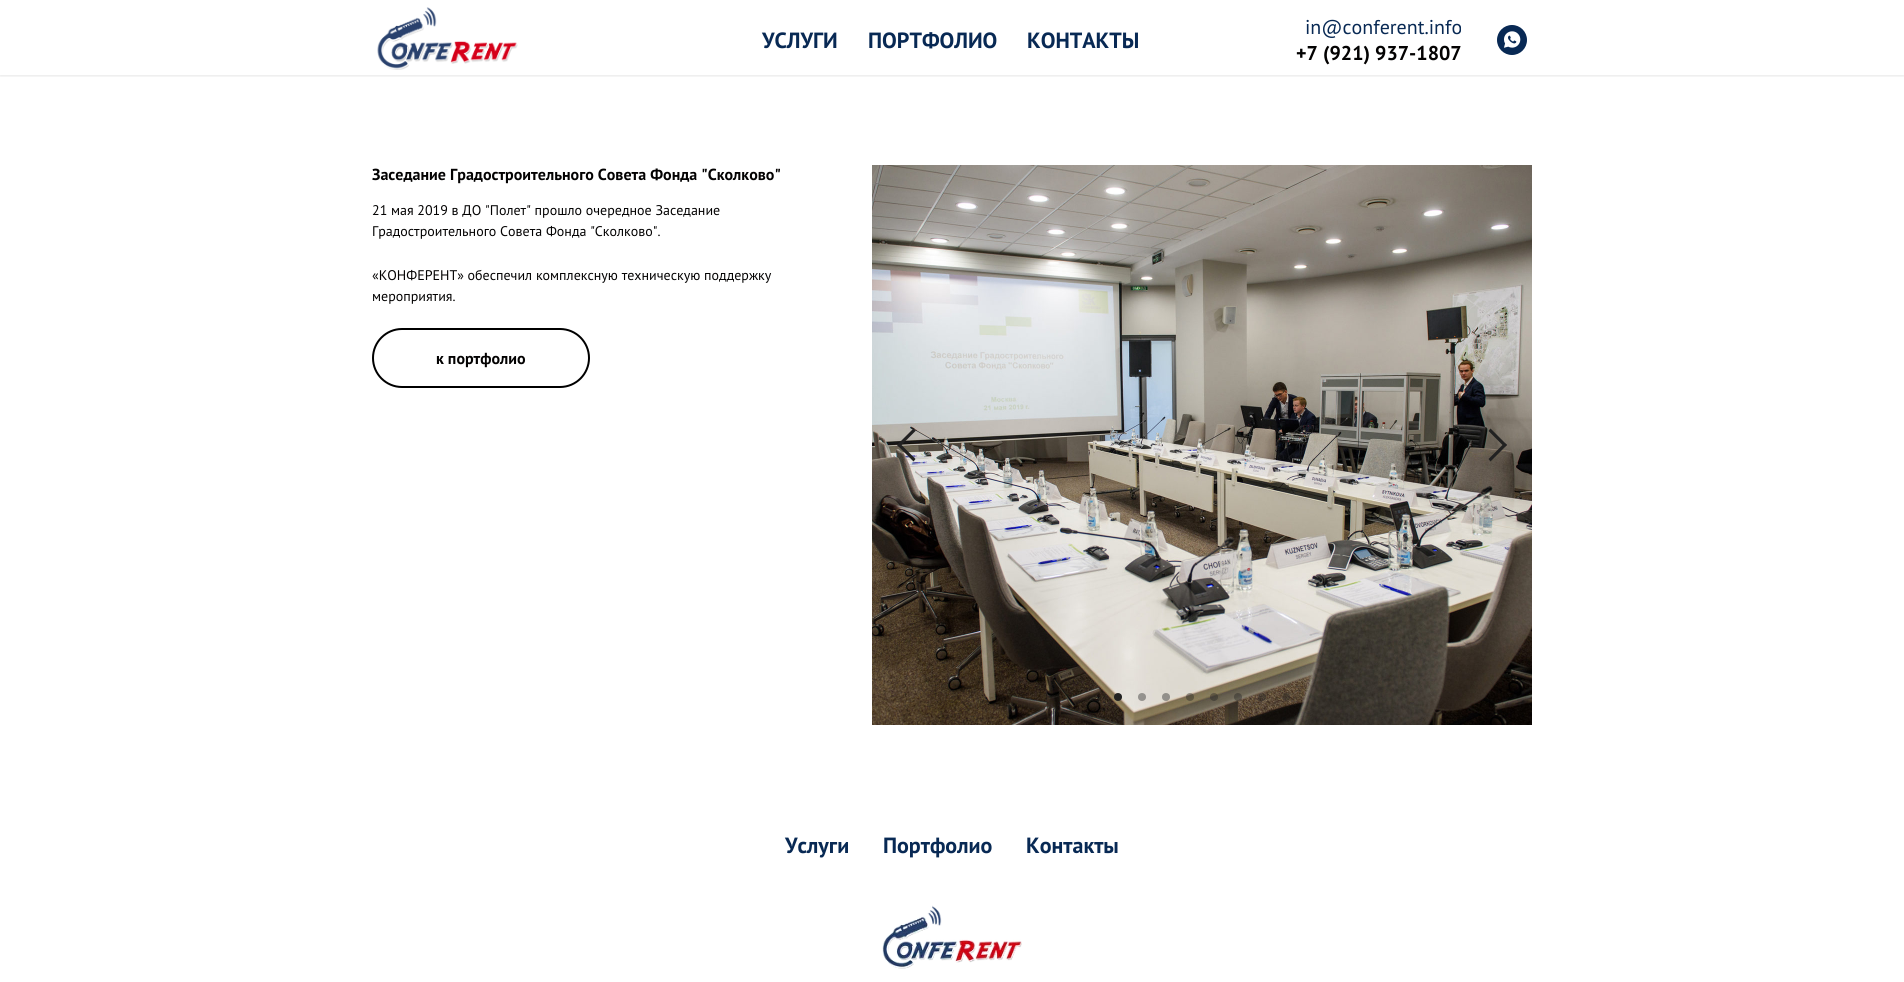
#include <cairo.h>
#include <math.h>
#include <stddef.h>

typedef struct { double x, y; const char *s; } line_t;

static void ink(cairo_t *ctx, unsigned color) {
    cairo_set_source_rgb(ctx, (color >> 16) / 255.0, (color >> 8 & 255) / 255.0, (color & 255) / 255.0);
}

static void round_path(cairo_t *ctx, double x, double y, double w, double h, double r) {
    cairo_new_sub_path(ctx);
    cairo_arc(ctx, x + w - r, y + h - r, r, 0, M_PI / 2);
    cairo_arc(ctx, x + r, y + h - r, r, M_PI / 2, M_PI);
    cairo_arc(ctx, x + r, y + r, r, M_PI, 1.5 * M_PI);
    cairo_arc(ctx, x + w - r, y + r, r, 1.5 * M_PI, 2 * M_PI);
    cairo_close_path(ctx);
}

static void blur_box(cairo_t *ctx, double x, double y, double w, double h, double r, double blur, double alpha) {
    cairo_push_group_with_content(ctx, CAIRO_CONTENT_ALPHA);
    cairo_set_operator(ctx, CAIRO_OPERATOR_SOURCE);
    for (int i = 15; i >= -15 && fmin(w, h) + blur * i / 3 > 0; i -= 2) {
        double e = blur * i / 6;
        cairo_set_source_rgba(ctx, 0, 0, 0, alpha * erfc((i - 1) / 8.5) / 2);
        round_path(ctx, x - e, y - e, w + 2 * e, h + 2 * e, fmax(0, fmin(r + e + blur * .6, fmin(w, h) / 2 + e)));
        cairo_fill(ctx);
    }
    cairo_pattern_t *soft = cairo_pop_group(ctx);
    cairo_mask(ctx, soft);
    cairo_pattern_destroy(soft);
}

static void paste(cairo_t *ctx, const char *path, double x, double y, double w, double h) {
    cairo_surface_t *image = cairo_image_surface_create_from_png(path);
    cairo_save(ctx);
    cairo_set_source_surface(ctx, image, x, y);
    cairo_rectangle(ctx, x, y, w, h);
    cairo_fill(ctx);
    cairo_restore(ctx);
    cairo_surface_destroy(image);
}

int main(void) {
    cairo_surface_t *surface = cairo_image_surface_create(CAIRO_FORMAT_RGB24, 1904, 982);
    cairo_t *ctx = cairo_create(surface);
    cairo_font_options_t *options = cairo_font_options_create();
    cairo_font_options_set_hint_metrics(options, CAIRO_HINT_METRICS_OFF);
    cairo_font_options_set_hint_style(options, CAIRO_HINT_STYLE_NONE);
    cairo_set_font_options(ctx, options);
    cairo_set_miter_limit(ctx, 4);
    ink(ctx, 0xFFFFFF);
    cairo_paint(ctx);
    cairo_save(ctx);
    cairo_rectangle(ctx, 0, 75, 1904, 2);
    cairo_clip(ctx);
    ink(ctx, 0x000000);
    blur_box(ctx, 0, 1, 1904, 75, 0, 1.5, 0.1);
    cairo_restore(ctx);
    paste(ctx, "media/1.png", 377, 7, 141, 63);
    cairo_select_font_face(ctx, "PT Sans", CAIRO_FONT_SLANT_NORMAL, CAIRO_FONT_WEIGHT_BOLD);
    cairo_set_font_size(ctx, 22);
    ink(ctx, 0x082954);
    {
        static const line_t items[] = {
            {762, 48, "УСЛУГИ"},
            {868, 48, "ПОРТФОЛИО"},
            {1027, 48, "КОНТАКТЫ"},
        };
        for (size_t i = 0; i < sizeof items / sizeof *items; i++) {
            cairo_move_to(ctx, items[i].x, items[i].y);
            cairo_show_text(ctx, items[i].s);
        }
    }
    cairo_select_font_face(ctx, "PT Sans", CAIRO_FONT_SLANT_NORMAL, CAIRO_FONT_WEIGHT_NORMAL);
    cairo_set_font_size(ctx, 20);
    cairo_move_to(ctx, 1305, 34);
    cairo_show_text(ctx, "in@conferent.info");
    cairo_select_font_face(ctx, "PT Sans", CAIRO_FONT_SLANT_NORMAL, CAIRO_FONT_WEIGHT_BOLD);
    ink(ctx, 0x030202);
    cairo_move_to(ctx, 1296, 60);
    cairo_show_text(ctx, "+7 (921) 937-1807");
    paste(ctx, "media/2.png", 1497, 25, 30, 30);
    cairo_set_font_size(ctx, 16);
    cairo_move_to(ctx, 372, 180);
    cairo_show_text(ctx, "Заседание Градостроительного Совета Фонда \"Сколково\"");
    cairo_select_font_face(ctx, "PT Sans", CAIRO_FONT_SLANT_NORMAL, CAIRO_FONT_WEIGHT_NORMAL);
    cairo_set_font_size(ctx, 14);
    {
        static const line_t items[] = {
            {372, 215, "21 мая 2019 в ДО \"Полет\" прошло очередное Заседание"},
            {372, 236, "Градостроительного Совета Фонда \"Сколково\"."},
            {372, 280, "«КОНФЕРЕНТ» обеспечил комплексную техническую поддержку"},
            {372, 301, "мероприятия."},
        };
        for (size_t i = 0; i < sizeof items / sizeof *items; i++) {
            cairo_move_to(ctx, items[i].x, items[i].y);
            cairo_show_text(ctx, items[i].s);
        }
    }
    round_path(ctx, 373, 329, 216, 58, 29);
    ink(ctx, 0x000000);
    cairo_stroke(ctx);
    cairo_select_font_face(ctx, "PT Sans", CAIRO_FONT_SLANT_NORMAL, CAIRO_FONT_WEIGHT_BOLD);
    cairo_set_font_size(ctx, 16);
    ink(ctx, 0x030202);
    cairo_move_to(ctx, 436, 364);
    cairo_show_text(ctx, "к портфолио");
    paste(ctx, "media/3.png", 872, 165, 660, 560);
    ink(ctx, 0x222222);
    cairo_new_path(ctx);
    cairo_move_to(ctx, 899.5, 443);
    cairo_line_to(ctx, 915.5, 459);
    cairo_line_to(ctx, 913.5, 461.5);
    cairo_line_to(ctx, 897, 445);
    cairo_close_path(ctx);
    cairo_fill(ctx);
    cairo_new_path(ctx);
    cairo_move_to(ctx, 913.5, 428.5);
    cairo_line_to(ctx, 915.5, 431);
    cairo_line_to(ctx, 899.5, 447);
    cairo_line_to(ctx, 897, 445);
    cairo_close_path(ctx);
    cairo_fill(ctx);
    cairo_new_path(ctx);
    cairo_move_to(ctx, 1490.5, 428.5);
    cairo_line_to(ctx, 1507, 445);
    cairo_line_to(ctx, 1504.5, 447);
    cairo_line_to(ctx, 1488.5, 431);
    cairo_close_path(ctx);
    cairo_fill(ctx);
    cairo_new_path(ctx);
    cairo_move_to(ctx, 1504.5, 443);
    cairo_line_to(ctx, 1507, 445);
    cairo_line_to(ctx, 1490.5, 461.5);
    cairo_line_to(ctx, 1488.5, 459);
    cairo_close_path(ctx);
    cairo_fill(ctx);
    cairo_arc(ctx, 1118, 697, 4, 0, 2 * M_PI);
    cairo_fill(ctx);
    cairo_set_source_rgba(ctx, 0.133, 0.133, 0.133, 0.4);
    cairo_arc(ctx, 1142, 697, 4, 0, 2 * M_PI);
    cairo_fill(ctx);
    cairo_arc(ctx, 1166, 697, 4, 0, 2 * M_PI);
    cairo_fill(ctx);
    cairo_arc(ctx, 1190, 697, 4, 0, 2 * M_PI);
    cairo_fill(ctx);
    cairo_arc(ctx, 1214, 697, 4, 0, 2 * M_PI);
    cairo_fill(ctx);
    cairo_arc(ctx, 1238, 697, 4, 0, 2 * M_PI);
    cairo_fill(ctx);
    cairo_arc(ctx, 1262, 697, 4, 0, 2 * M_PI);
    cairo_fill(ctx);
    cairo_arc(ctx, 1286, 697, 4, 0, 2 * M_PI);
    cairo_fill(ctx);
    cairo_set_font_size(ctx, 22);
    ink(ctx, 0x082954);
    {
        static const line_t items[] = {
            {785, 853, "Услуги"},
            {883, 853, "Портфолио"},
            {1026, 853, "Контакты"},
        };
        for (size_t i = 0; i < sizeof items / sizeof *items; i++) {
            cairo_move_to(ctx, items[i].x, items[i].y);
            cairo_show_text(ctx, items[i].s);
        }
    }
    paste(ctx, "media/4.png", 882, 905, 140, 64);
    cairo_surface_write_to_png(surface, "image.png");
    cairo_font_options_destroy(options);
    cairo_destroy(ctx);
    cairo_surface_destroy(surface);
    return 0;
}
